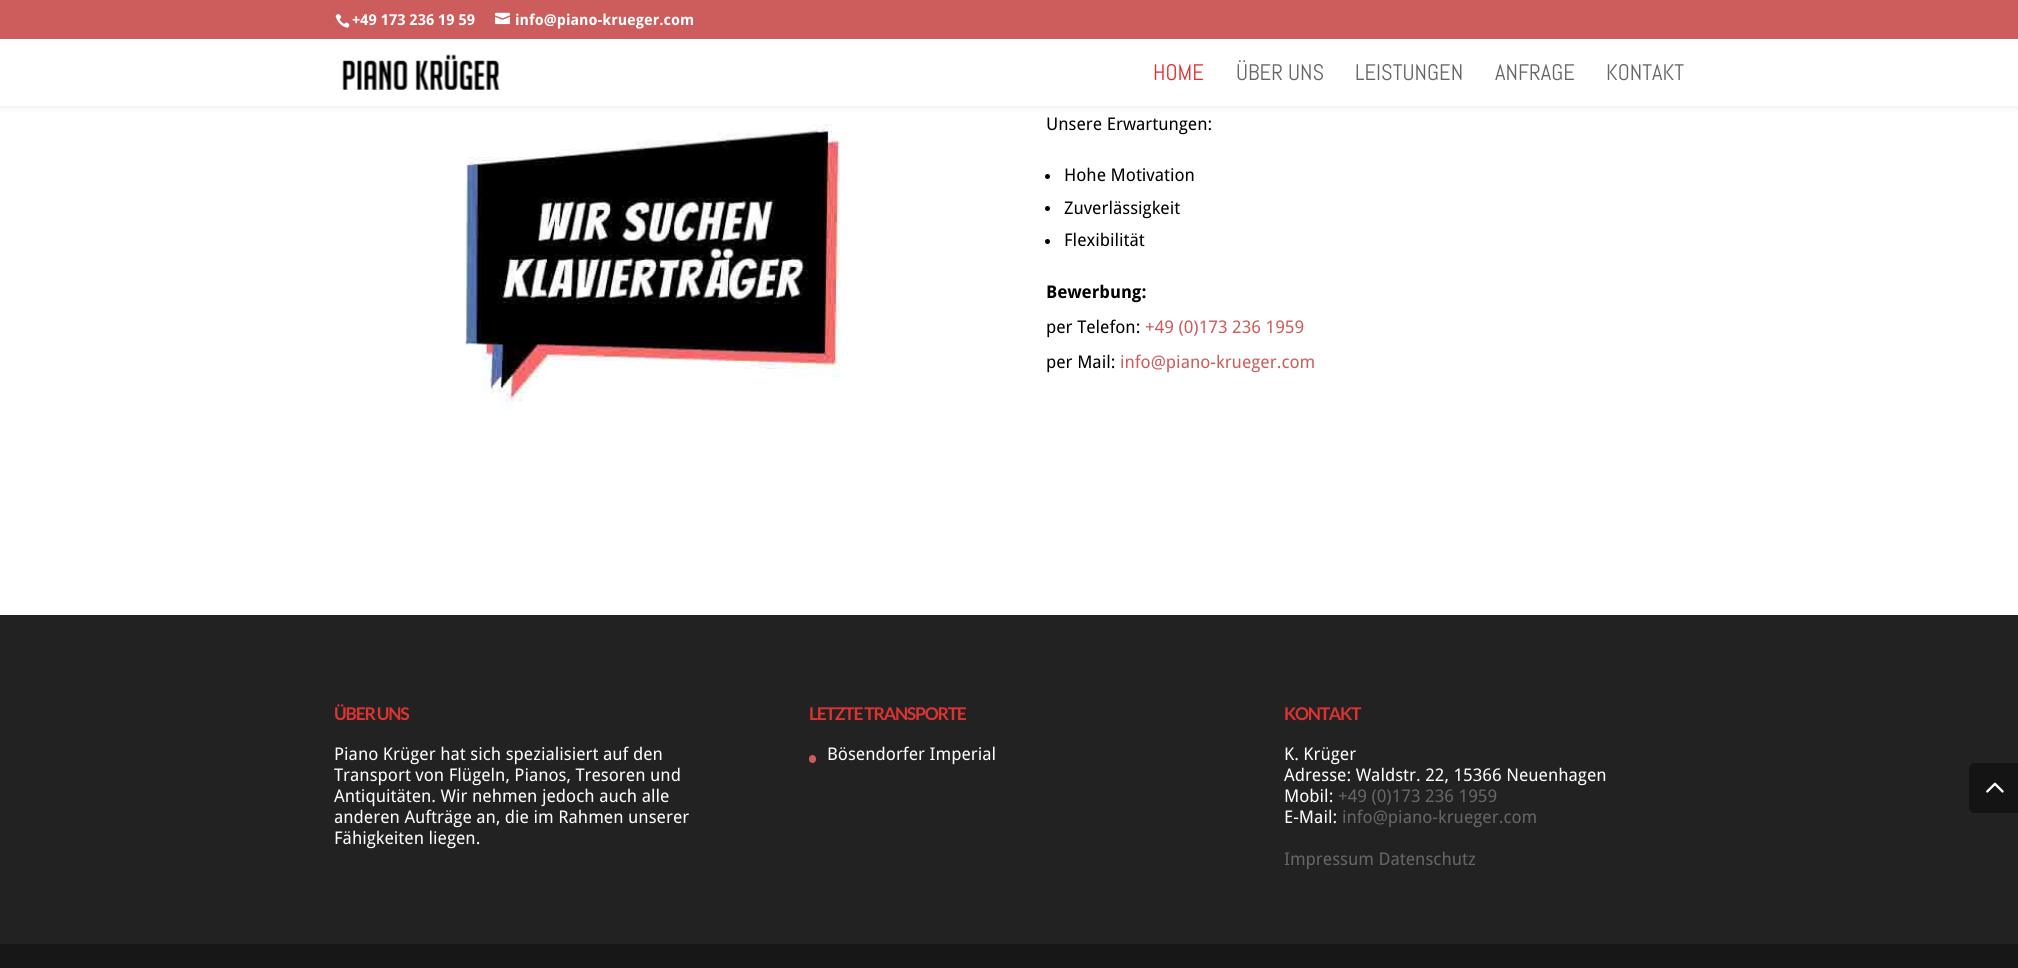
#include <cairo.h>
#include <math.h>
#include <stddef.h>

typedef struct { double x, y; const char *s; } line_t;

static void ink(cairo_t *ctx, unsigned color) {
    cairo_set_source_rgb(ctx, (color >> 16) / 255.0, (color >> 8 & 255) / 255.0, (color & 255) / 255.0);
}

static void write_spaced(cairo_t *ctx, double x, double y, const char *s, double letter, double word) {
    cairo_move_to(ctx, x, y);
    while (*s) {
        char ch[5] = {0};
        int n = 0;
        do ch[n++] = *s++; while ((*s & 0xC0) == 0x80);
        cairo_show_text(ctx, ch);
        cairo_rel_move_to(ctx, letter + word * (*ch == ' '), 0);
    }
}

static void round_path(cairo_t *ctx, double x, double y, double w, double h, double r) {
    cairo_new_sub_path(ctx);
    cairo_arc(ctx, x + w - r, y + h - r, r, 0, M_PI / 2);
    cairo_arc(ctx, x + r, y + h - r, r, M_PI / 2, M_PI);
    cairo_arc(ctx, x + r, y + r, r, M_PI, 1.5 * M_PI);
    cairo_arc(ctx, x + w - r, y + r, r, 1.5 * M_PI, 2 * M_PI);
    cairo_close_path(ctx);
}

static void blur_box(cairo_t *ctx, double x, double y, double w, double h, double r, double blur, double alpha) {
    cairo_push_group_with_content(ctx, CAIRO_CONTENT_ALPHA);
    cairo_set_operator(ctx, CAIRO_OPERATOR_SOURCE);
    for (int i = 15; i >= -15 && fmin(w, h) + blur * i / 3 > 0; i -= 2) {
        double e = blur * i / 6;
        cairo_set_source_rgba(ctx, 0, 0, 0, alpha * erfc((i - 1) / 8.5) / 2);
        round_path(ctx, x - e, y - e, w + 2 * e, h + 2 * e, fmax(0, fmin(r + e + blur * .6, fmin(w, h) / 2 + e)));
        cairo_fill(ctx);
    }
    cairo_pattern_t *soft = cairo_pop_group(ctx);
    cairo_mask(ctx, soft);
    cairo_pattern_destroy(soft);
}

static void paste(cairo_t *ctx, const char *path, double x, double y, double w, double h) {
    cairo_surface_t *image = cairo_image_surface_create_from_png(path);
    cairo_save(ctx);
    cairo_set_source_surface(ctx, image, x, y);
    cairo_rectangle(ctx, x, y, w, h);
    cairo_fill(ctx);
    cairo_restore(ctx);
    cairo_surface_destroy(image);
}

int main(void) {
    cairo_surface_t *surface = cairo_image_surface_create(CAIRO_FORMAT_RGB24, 2018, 968);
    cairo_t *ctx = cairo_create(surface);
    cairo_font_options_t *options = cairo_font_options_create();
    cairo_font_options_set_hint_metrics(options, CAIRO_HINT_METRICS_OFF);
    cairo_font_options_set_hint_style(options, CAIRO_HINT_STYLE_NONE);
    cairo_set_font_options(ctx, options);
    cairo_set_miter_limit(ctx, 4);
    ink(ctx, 0x222222);
    cairo_paint(ctx);
    ink(ctx, 0xFFFFFF);
    cairo_rectangle(ctx, 0, 106, 2018, 509);
    cairo_fill(ctx);
    ink(ctx, 0x000000);
    blur_box(ctx, 0, 39, 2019, 67, 0, 4.5, 0.1);
    ink(ctx, 0xCD5C5C);
    cairo_rectangle(ctx, 0, 0, 2018, 39);
    cairo_fill(ctx);
    paste(ctx, "media/1.png", 335, 14, 15, 14);
    cairo_select_font_face(ctx, "Droid Sans", CAIRO_FONT_SLANT_NORMAL, CAIRO_FONT_WEIGHT_BOLD);
    cairo_set_font_size(ctx, 15);
    ink(ctx, 0xFFFFFF);
    cairo_move_to(ctx, 352, 25);
    cairo_show_text(ctx, "+49 173 236 19 59");
    paste(ctx, "media/2.png", 495, 12, 15, 13);
    cairo_move_to(ctx, 515, 25);
    cairo_show_text(ctx, "info@piano-krueger.com");
    cairo_rectangle(ctx, 0, 39, 2018, 67);
    cairo_fill(ctx);
    paste(ctx, "media/3.png", 342, 54, 158, 36);
    cairo_select_font_face(ctx, "Abel", CAIRO_FONT_SLANT_NORMAL, CAIRO_FONT_WEIGHT_NORMAL);
    cairo_set_font_size(ctx, 22.5);
    ink(ctx, 0xDD3333);
    cairo_move_to(ctx, 1153, 80);
    cairo_show_text(ctx, "HOME");
    ink(ctx, 0x666666);
    {
        static const line_t items[] = {
            {1236, 80, "ÜBER UNS"},
            {1355, 80, "LEISTUNGEN"},
            {1495, 80, "ANFRAGE"},
            {1606, 80, "KONTAKT"},
        };
        for (size_t i = 0; i < sizeof items / sizeof *items; i++) {
            cairo_move_to(ctx, items[i].x, items[i].y);
            cairo_show_text(ctx, items[i].s);
        }
    }
    paste(ctx, "media/4.png", 465, 124, 375, 286);
    cairo_select_font_face(ctx, "Droid Sans", CAIRO_FONT_SLANT_NORMAL, CAIRO_FONT_WEIGHT_NORMAL);
    cairo_set_font_size(ctx, 17.5);
    ink(ctx, 0x000000);
    cairo_move_to(ctx, 1046, 130);
    cairo_show_text(ctx, "Unsere Erwartungen:");
    cairo_new_path(ctx);
    cairo_arc(ctx, 1047.5, 176.5, 2.5, 0, 2 * M_PI);
    cairo_fill(ctx);
    cairo_move_to(ctx, 1064, 181);
    cairo_show_text(ctx, "Hohe Motivation");
    cairo_new_path(ctx);
    cairo_arc(ctx, 1047.5, 208.5, 2.5, 0, 2 * M_PI);
    cairo_fill(ctx);
    cairo_move_to(ctx, 1064, 214);
    cairo_show_text(ctx, "Zuverlässigkeit");
    cairo_new_path(ctx);
    cairo_arc(ctx, 1047.5, 241.5, 2.5, 0, 2 * M_PI);
    cairo_fill(ctx);
    cairo_move_to(ctx, 1064, 246);
    cairo_show_text(ctx, "Flexibilität");
    cairo_select_font_face(ctx, "Droid Sans", CAIRO_FONT_SLANT_NORMAL, CAIRO_FONT_WEIGHT_BOLD);
    cairo_move_to(ctx, 1046, 298);
    cairo_show_text(ctx, "Bewerbung:");
    cairo_select_font_face(ctx, "Droid Sans", CAIRO_FONT_SLANT_NORMAL, CAIRO_FONT_WEIGHT_NORMAL);
    cairo_move_to(ctx, 1046, 333);
    cairo_show_text(ctx, "per Telefon:");
    ink(ctx, 0xCD5C5C);
    cairo_move_to(ctx, 1145, 333);
    cairo_show_text(ctx, "+49 (0)173 236 1959");
    ink(ctx, 0x000000);
    cairo_move_to(ctx, 1046, 368);
    cairo_show_text(ctx, "per Mail:");
    ink(ctx, 0xCD5C5C);
    cairo_move_to(ctx, 1120, 368);
    cairo_show_text(ctx, "info@piano-krueger.com");
    cairo_select_font_face(ctx, "Lato", CAIRO_FONT_SLANT_NORMAL, CAIRO_FONT_WEIGHT_BOLD);
    ink(ctx, 0xDD3333);
    write_spaced(ctx, 334, 720, "ÜBER UNS", -1.25, 0);
    cairo_select_font_face(ctx, "Droid Sans", CAIRO_FONT_SLANT_NORMAL, CAIRO_FONT_WEIGHT_NORMAL);
    ink(ctx, 0xFFFFFF);
    {
        static const line_t items[] = {
            {334, 760, "Piano Krüger hat sich spezialisiert auf den"},
            {334, 781, "Transport von Flügeln, Pianos, Tresoren und"},
            {334, 802, "Antiquitäten. Wir nehmen jedoch auch alle"},
            {334, 823, "anderen Aufträge an, die im Rahmen unserer"},
            {334, 844, "Fähigkeiten liegen."},
        };
        for (size_t i = 0; i < sizeof items / sizeof *items; i++) {
            cairo_move_to(ctx, items[i].x, items[i].y);
            cairo_show_text(ctx, items[i].s);
        }
    }
    cairo_select_font_face(ctx, "Lato", CAIRO_FONT_SLANT_NORMAL, CAIRO_FONT_WEIGHT_BOLD);
    ink(ctx, 0xDD3333);
    write_spaced(ctx, 809, 720, "LETZTE TRANSPORTE", -1.25, 0);
    ink(ctx, 0xCD5C5C);
    round_path(ctx, 809, 755, 7, 8, 3.5);
    cairo_fill(ctx);
    cairo_select_font_face(ctx, "Droid Sans", CAIRO_FONT_SLANT_NORMAL, CAIRO_FONT_WEIGHT_NORMAL);
    ink(ctx, 0xFFFFFF);
    cairo_move_to(ctx, 827, 760);
    cairo_show_text(ctx, "Bösendorfer Imperial");
    cairo_select_font_face(ctx, "Lato", CAIRO_FONT_SLANT_NORMAL, CAIRO_FONT_WEIGHT_BOLD);
    ink(ctx, 0xDD3333);
    write_spaced(ctx, 1284, 720, "KONTAKT", -1.25, 0);
    cairo_select_font_face(ctx, "Droid Sans", CAIRO_FONT_SLANT_NORMAL, CAIRO_FONT_WEIGHT_NORMAL);
    ink(ctx, 0xFFFFFF);
    {
        static const line_t items[] = {
            {1284, 760, "K. Krüger"},
            {1284, 781, "Adresse: Waldstr. 22, 15366 Neuenhagen"},
            {1284, 802, "Mobil:"},
        };
        for (size_t i = 0; i < sizeof items / sizeof *items; i++) {
            cairo_move_to(ctx, items[i].x, items[i].y);
            cairo_show_text(ctx, items[i].s);
        }
    }
    ink(ctx, 0x666666);
    cairo_move_to(ctx, 1338, 802);
    cairo_show_text(ctx, "+49 (0)173 236 1959");
    ink(ctx, 0xFFFFFF);
    cairo_move_to(ctx, 1284, 823);
    cairo_show_text(ctx, "E-Mail:");
    ink(ctx, 0x666666);
    cairo_move_to(ctx, 1342, 823);
    cairo_show_text(ctx, "info@piano-krueger.com");
    cairo_move_to(ctx, 1284, 865);
    cairo_show_text(ctx, "Impressum Datenschutz");
    ink(ctx, 0x171717);
    cairo_rectangle(ctx, 0, 944, 2018, 24);
    cairo_fill(ctx);
    ink(ctx, 0x141414);
    cairo_new_path(ctx);
    cairo_move_to(ctx, 1975, 763);
    cairo_line_to(ctx, 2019, 763);
    cairo_line_to(ctx, 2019, 813);
    cairo_line_to(ctx, 1975, 813);
    cairo_curve_to(ctx, 1971.5, 813, 1969, 810.5, 1969, 807);
    cairo_line_to(ctx, 1969, 769);
    cairo_curve_to(ctx, 1969, 765.5, 1971.5, 763, 1975, 763);
    cairo_close_path(ctx);
    cairo_fill(ctx);
    paste(ctx, "media/5.png", 1986, 782, 18, 11);
    cairo_surface_write_to_png(surface, "image.png");
    cairo_font_options_destroy(options);
    cairo_destroy(ctx);
    cairo_surface_destroy(surface);
    return 0;
}
